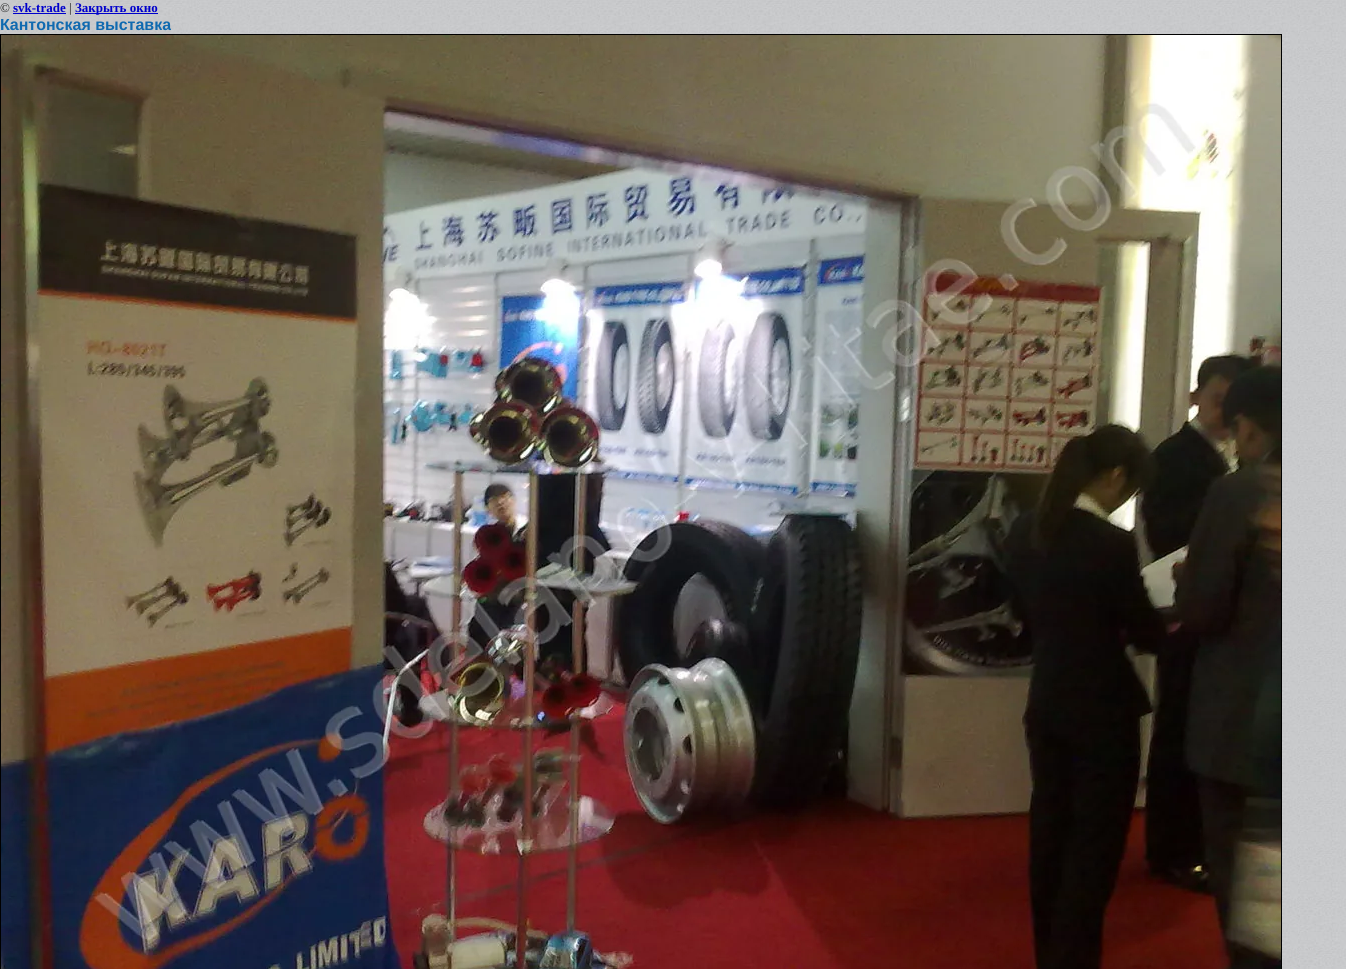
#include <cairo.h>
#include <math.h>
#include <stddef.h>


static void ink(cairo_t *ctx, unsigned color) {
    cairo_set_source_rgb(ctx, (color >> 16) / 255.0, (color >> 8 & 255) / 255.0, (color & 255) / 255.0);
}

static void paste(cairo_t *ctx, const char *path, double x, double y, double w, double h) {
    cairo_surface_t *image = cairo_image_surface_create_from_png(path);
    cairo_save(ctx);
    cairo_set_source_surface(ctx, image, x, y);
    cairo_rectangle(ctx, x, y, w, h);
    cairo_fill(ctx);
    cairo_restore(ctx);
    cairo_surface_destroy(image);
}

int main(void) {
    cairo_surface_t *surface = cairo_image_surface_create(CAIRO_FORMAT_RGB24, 1346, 969);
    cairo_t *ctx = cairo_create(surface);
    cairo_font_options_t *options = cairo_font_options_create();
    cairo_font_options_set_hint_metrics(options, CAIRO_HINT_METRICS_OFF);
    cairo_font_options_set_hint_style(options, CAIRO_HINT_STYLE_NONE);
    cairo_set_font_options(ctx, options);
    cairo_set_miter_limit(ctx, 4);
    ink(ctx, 0xFFFFFF);
    cairo_paint(ctx);
    paste(ctx, "media/1.png", 0, 0, 1346, 969);
    cairo_select_font_face(ctx, "Liberation Serif", CAIRO_FONT_SLANT_NORMAL, CAIRO_FONT_WEIGHT_NORMAL);
    cairo_set_font_size(ctx, 13);
    ink(ctx, 0x191919);
    cairo_move_to(ctx, 0, 12);
    cairo_show_text(ctx, "©");
    cairo_select_font_face(ctx, "Liberation Serif", CAIRO_FONT_SLANT_NORMAL, CAIRO_FONT_WEIGHT_BOLD);
    ink(ctx, 0x0000CC);
    cairo_move_to(ctx, 13, 12);
    cairo_show_text(ctx, "svk-trade");
    cairo_rectangle(ctx, 13, 13, 53, 1);
    cairo_fill(ctx);
    cairo_select_font_face(ctx, "Liberation Serif", CAIRO_FONT_SLANT_NORMAL, CAIRO_FONT_WEIGHT_NORMAL);
    ink(ctx, 0x191919);
    cairo_move_to(ctx, 69, 12);
    cairo_show_text(ctx, "|");
    ink(ctx, 0x0000CC);
    cairo_rectangle(ctx, 75, 13, 83, 1);
    cairo_fill(ctx);
    cairo_select_font_face(ctx, "Liberation Serif", CAIRO_FONT_SLANT_NORMAL, CAIRO_FONT_WEIGHT_BOLD);
    cairo_move_to(ctx, 75, 12);
    cairo_show_text(ctx, "Закрыть окно");
    cairo_select_font_face(ctx, "Liberation Sans", CAIRO_FONT_SLANT_NORMAL, CAIRO_FONT_WEIGHT_BOLD);
    cairo_set_font_size(ctx, 16);
    ink(ctx, 0x106AB0);
    cairo_move_to(ctx, 0, 30);
    cairo_show_text(ctx, "Кантонская выставка");
    cairo_rectangle(ctx, 0.5, 34.5, 1281, 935);
    ink(ctx, 0x000000);
    cairo_set_line_width(ctx, 1);
    cairo_stroke(ctx);
    paste(ctx, "media/2.png", 1, 35, 1280, 934);
    cairo_surface_write_to_png(surface, "image.png");
    cairo_font_options_destroy(options);
    cairo_destroy(ctx);
    cairo_surface_destroy(surface);
    return 0;
}
